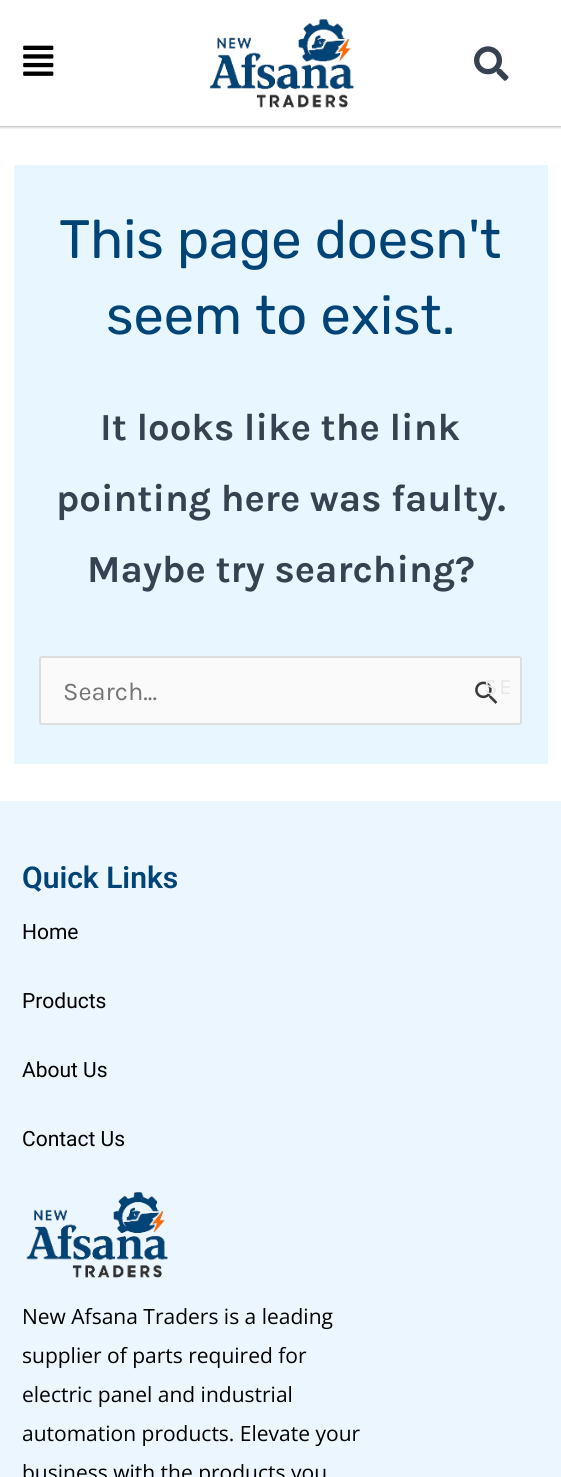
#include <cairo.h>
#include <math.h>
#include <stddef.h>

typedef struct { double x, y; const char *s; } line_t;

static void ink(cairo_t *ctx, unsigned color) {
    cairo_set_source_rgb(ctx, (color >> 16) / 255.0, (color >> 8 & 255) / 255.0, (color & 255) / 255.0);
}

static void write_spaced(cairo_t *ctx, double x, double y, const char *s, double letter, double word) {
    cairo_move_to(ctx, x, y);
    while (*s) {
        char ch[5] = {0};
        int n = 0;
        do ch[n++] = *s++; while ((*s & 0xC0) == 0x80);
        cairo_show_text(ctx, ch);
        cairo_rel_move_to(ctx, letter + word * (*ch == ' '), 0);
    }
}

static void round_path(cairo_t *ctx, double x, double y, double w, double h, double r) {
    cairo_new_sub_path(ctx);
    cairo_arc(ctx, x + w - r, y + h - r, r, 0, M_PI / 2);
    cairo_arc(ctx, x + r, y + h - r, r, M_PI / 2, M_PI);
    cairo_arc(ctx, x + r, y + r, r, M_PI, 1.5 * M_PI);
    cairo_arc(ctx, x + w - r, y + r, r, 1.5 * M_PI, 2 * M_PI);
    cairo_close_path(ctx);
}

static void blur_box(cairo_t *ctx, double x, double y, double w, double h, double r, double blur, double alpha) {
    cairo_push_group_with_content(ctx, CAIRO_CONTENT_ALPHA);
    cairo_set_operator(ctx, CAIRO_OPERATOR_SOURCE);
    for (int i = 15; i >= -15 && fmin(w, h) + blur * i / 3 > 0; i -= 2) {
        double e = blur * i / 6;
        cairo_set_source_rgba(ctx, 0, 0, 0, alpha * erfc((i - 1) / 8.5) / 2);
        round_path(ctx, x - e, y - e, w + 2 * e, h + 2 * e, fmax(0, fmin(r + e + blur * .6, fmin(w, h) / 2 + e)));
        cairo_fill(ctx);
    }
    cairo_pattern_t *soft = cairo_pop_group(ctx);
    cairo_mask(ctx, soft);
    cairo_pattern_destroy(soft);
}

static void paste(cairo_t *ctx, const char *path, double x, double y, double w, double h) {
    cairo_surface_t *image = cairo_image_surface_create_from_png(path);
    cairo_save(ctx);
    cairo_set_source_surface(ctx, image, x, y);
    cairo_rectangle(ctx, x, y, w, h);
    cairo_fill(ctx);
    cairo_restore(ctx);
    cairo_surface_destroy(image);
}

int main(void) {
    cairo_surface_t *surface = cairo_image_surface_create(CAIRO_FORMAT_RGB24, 561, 1477);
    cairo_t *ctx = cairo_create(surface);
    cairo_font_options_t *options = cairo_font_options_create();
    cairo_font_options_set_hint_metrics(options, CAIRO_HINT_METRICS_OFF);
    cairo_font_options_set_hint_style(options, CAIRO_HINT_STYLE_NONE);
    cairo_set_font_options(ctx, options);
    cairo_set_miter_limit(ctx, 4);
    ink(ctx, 0xFFFFFF);
    cairo_paint(ctx);
    cairo_save(ctx);
    cairo_rectangle(ctx, 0, 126, 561, 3);
    cairo_clip(ctx);
    ink(ctx, 0x000000);
    blur_box(ctx, 0, 0, 561, 126, 0, 2, 0.5);
    cairo_restore(ctx);
    paste(ctx, "media/1.png", 23, 45, 31, 31);
    paste(ctx, "media/2.png", 209, 19, 145, 89);
    paste(ctx, "media/3.png", 474, 46, 35, 35);
    ink(ctx, 0xE7F6FF);
    cairo_rectangle(ctx, 14, 165, 534, 599);
    cairo_fill(ctx);
    cairo_select_font_face(ctx, "Rubik", CAIRO_FONT_SLANT_NORMAL, CAIRO_FONT_WEIGHT_NORMAL);
    cairo_set_font_size(ctx, 54);
    ink(ctx, 0x004477);
    cairo_move_to(ctx, 59, 258);
    cairo_show_text(ctx, "This page doesn't");
    cairo_move_to(ctx, 106, 334);
    cairo_show_text(ctx, "seem to exist.");
    cairo_select_font_face(ctx, "Karla", CAIRO_FONT_SLANT_NORMAL, CAIRO_FONT_WEIGHT_BOLD);
    cairo_set_font_size(ctx, 38.25);
    ink(ctx, 0x364151);
    {
        static const line_t items[] = {
            {100, 440, "It looks like the link"},
            {56, 511, "pointing here was faulty."},
            {87, 582, "Maybe try searching?"},
        };
        for (size_t i = 0; i < sizeof items / sizeof *items; i++) {
            cairo_move_to(ctx, items[i].x, items[i].y);
            cairo_show_text(ctx, items[i].s);
        }
    }
    ink(ctx, 0xFAFAFA);
    round_path(ctx, 40, 657, 481, 67, 2);
    cairo_fill_preserve(ctx);
    ink(ctx, 0xDDDDDD);
    cairo_stroke(ctx);
    cairo_select_font_face(ctx, "Karla", CAIRO_FONT_SLANT_NORMAL, CAIRO_FONT_WEIGHT_NORMAL);
    cairo_set_font_size(ctx, 25.5);
    ink(ctx, 0x757575);
    cairo_move_to(ctx, 63, 700);
    cairo_show_text(ctx, "Search...");
    paste(ctx, "media/4.png", 475, 681, 22, 23);
    cairo_set_font_size(ctx, 22);
    ink(ctx, 0xE7E7E7);
    write_spaced(ctx, 484, 694, "SE", 2, 0);
    ink(ctx, 0xEBF6FF);
    cairo_rectangle(ctx, 0, 801, 561, 676);
    cairo_fill(ctx);
    cairo_select_font_face(ctx, "Roboto SemiBold", CAIRO_FONT_SLANT_NORMAL, CAIRO_FONT_WEIGHT_NORMAL);
    cairo_set_font_size(ctx, 30);
    ink(ctx, 0x004477);
    cairo_move_to(ctx, 22, 888);
    cairo_show_text(ctx, "Quick Links");
    cairo_select_font_face(ctx, "Roboto", CAIRO_FONT_SLANT_NORMAL, CAIRO_FONT_WEIGHT_NORMAL);
    cairo_set_font_size(ctx, 21);
    ink(ctx, 0x000000);
    {
        static const line_t items[] = {
            {22, 939, "Home"},
            {22, 1008, "Products"},
            {22, 1077, "About Us"},
            {22, 1146, "Contact Us"},
        };
        for (size_t i = 0; i < sizeof items / sizeof *items; i++) {
            cairo_move_to(ctx, items[i].x, items[i].y);
            cairo_show_text(ctx, items[i].s);
        }
    }
    paste(ctx, "media/5.png", 26, 1192, 142, 86);
    cairo_select_font_face(ctx, "Open Sans", CAIRO_FONT_SLANT_NORMAL, CAIRO_FONT_WEIGHT_NORMAL);
    {
        static const line_t items[] = {
            {22, 1324, "New Afsana Traders is a leading"},
            {22, 1363, "supplier of parts required for"},
            {22, 1402, "electric panel and industrial"},
            {22, 1441, "automation products. Elevate your"},
            {22, 1480, "business with the products you"},
        };
        for (size_t i = 0; i < sizeof items / sizeof *items; i++) {
            cairo_move_to(ctx, items[i].x, items[i].y);
            cairo_show_text(ctx, items[i].s);
        }
    }
    cairo_surface_write_to_png(surface, "image.png");
    cairo_font_options_destroy(options);
    cairo_destroy(ctx);
    cairo_surface_destroy(surface);
    return 0;
}
